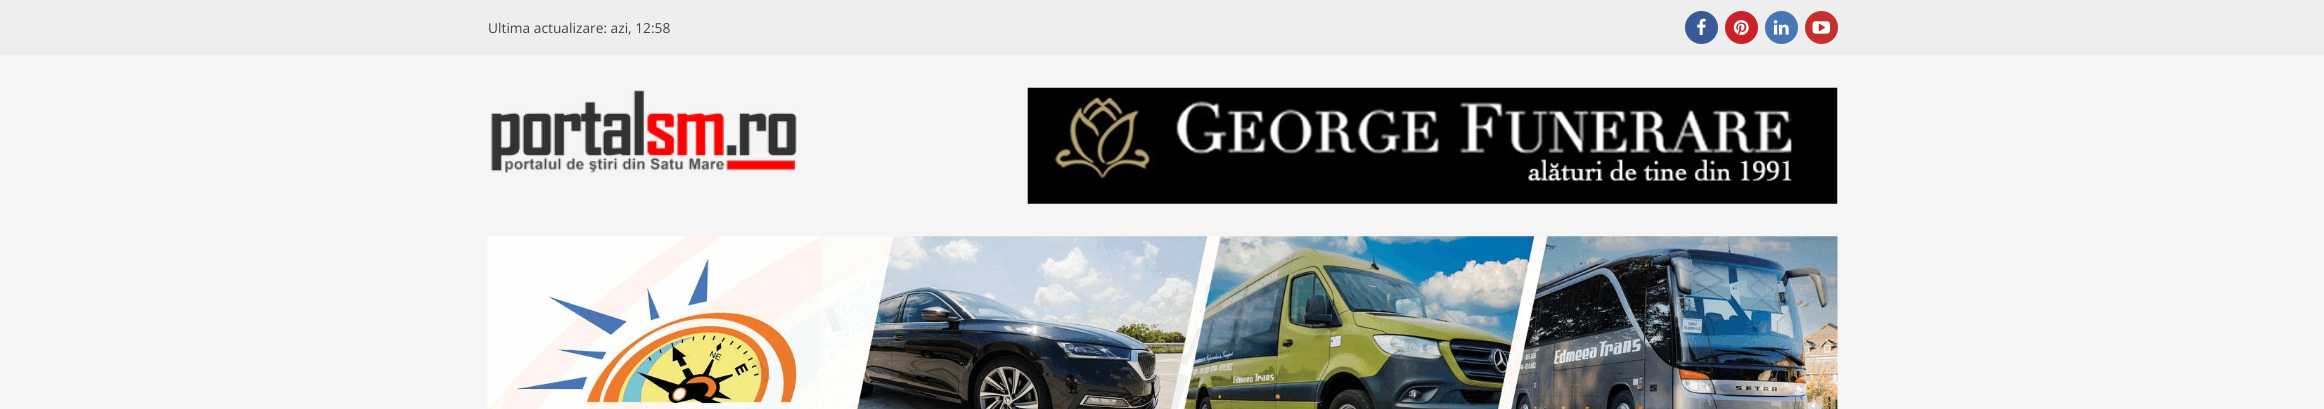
#include <cairo.h>
#include <math.h>
#include <stddef.h>


static void ink(cairo_t *ctx, unsigned color) {
    cairo_set_source_rgb(ctx, (color >> 16) / 255.0, (color >> 8 & 255) / 255.0, (color & 255) / 255.0);
}

static void paste(cairo_t *ctx, const char *path, double x, double y, double w, double h) {
    cairo_surface_t *image = cairo_image_surface_create_from_png(path);
    cairo_save(ctx);
    cairo_set_source_surface(ctx, image, x, y);
    cairo_rectangle(ctx, x, y, w, h);
    cairo_fill(ctx);
    cairo_restore(ctx);
    cairo_surface_destroy(image);
}

int main(void) {
    cairo_surface_t *surface = cairo_image_surface_create(CAIRO_FORMAT_RGB24, 2324, 409);
    cairo_t *ctx = cairo_create(surface);
    cairo_font_options_t *options = cairo_font_options_create();
    cairo_font_options_set_hint_metrics(options, CAIRO_HINT_METRICS_OFF);
    cairo_font_options_set_hint_style(options, CAIRO_HINT_STYLE_NONE);
    cairo_set_font_options(ctx, options);
    cairo_set_miter_limit(ctx, 4);
    ink(ctx, 0xEEEEEE);
    cairo_paint(ctx);
    ink(ctx, 0xF5F5F5);
    cairo_rectangle(ctx, 0, 55, 2324, 354);
    cairo_fill(ctx);
    cairo_select_font_face(ctx, "Open Sans", CAIRO_FONT_SLANT_NORMAL, CAIRO_FONT_WEIGHT_NORMAL);
    cairo_set_font_size(ctx, 13.75);
    ink(ctx, 0x444444);
    cairo_move_to(ctx, 488, 33);
    cairo_show_text(ctx, "Ultima actualizare: azi, 12:58");
    ink(ctx, 0x3B5998);
    cairo_new_path(ctx);
    cairo_arc(ctx, 1701.5, 27.5, 16.5, 0, 2 * M_PI);
    cairo_fill(ctx);
    paste(ctx, "media/1.png", 1697, 18, 9, 17);
    ink(ctx, 0xCB2027);
    cairo_arc(ctx, 1741.5, 27.5, 16.5, 0, 2 * M_PI);
    cairo_fill(ctx);
    paste(ctx, "media/2.png", 1733, 20, 16, 15);
    ink(ctx, 0x4875B4);
    cairo_arc(ctx, 1781.5, 27.5, 16.5, 0, 2 * M_PI);
    cairo_fill(ctx);
    paste(ctx, "media/3.png", 1773, 20, 16, 15);
    ink(ctx, 0xC4302B);
    cairo_arc(ctx, 1821.5, 27.5, 16.5, 0, 2 * M_PI);
    cairo_fill(ctx);
    paste(ctx, "media/4.png", 1812, 21, 18, 13);
    paste(ctx, "media/5.png", 491, 90, 306, 83);
    paste(ctx, "media/6.png", 1027, 87, 811, 117);
    paste(ctx, "media/7.png", 487, 236, 1351, 173);
    cairo_surface_write_to_png(surface, "image.png");
    cairo_font_options_destroy(options);
    cairo_destroy(ctx);
    cairo_surface_destroy(surface);
    return 0;
}
